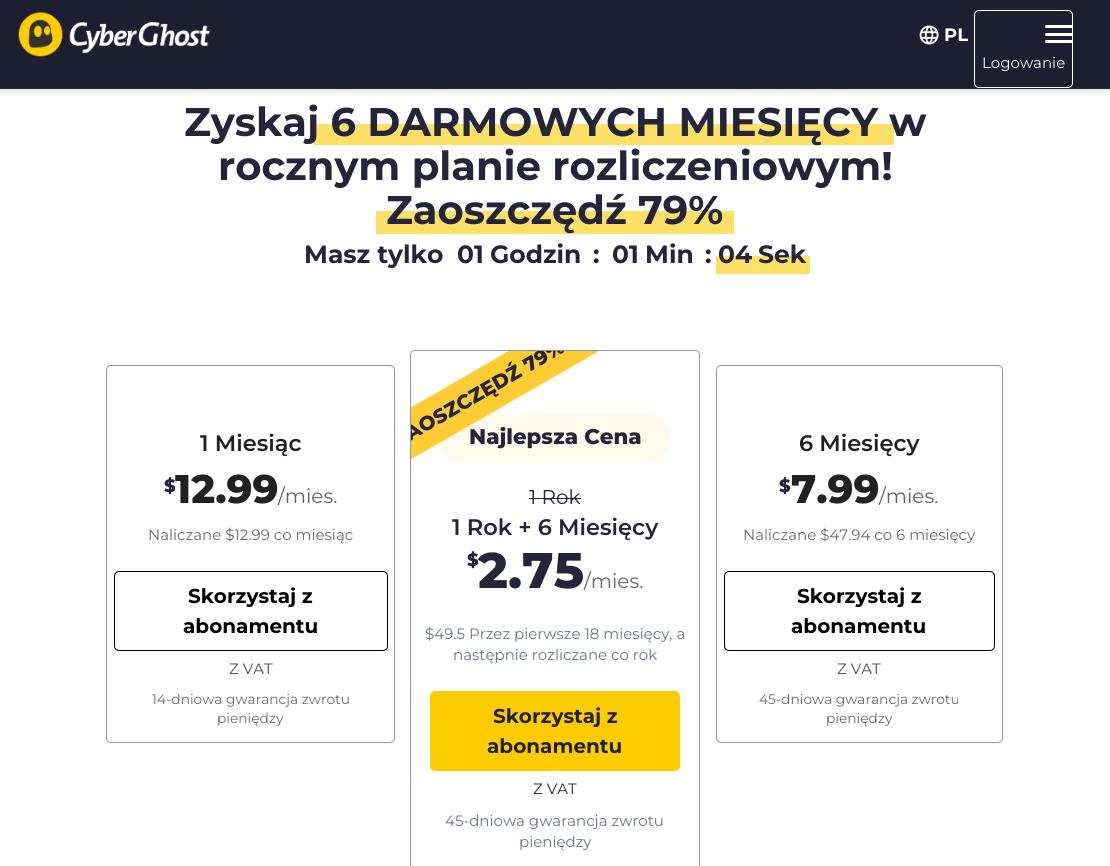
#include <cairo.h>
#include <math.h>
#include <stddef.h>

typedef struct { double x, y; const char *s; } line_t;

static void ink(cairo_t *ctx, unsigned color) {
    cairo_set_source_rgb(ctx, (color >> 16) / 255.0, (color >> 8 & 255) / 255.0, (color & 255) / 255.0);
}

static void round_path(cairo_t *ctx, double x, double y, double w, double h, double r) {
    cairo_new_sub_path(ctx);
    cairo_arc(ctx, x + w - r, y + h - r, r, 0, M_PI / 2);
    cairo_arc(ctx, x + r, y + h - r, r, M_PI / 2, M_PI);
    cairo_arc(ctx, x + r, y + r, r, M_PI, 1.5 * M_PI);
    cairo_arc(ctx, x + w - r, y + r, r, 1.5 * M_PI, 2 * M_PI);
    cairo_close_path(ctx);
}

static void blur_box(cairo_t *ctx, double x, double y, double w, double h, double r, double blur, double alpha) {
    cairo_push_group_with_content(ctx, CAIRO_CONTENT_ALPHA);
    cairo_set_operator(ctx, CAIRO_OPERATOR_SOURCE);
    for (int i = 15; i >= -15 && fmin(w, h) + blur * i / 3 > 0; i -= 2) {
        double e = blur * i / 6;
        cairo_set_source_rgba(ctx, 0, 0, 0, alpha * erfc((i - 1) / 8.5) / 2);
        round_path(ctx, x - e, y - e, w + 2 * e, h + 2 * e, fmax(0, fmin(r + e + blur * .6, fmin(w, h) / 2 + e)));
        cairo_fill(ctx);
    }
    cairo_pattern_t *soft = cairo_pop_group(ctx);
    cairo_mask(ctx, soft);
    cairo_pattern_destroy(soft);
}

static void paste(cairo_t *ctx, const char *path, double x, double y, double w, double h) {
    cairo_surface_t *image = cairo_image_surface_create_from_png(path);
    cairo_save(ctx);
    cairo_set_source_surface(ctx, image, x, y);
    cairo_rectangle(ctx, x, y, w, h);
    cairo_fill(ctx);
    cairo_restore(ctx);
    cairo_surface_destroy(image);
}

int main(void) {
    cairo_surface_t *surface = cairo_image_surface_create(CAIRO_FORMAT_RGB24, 1110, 866);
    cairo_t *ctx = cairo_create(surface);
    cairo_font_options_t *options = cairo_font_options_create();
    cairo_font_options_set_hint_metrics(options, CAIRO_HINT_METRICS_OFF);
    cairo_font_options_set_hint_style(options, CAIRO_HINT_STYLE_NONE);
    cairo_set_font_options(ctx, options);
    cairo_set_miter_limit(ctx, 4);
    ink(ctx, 0xFFFFFF);
    cairo_paint(ctx);
    ink(ctx, 0x000000);
    blur_box(ctx, 0, 1, 1110, 89, 0, 3, 0.2);
    ink(ctx, 0x1D1E2F);
    cairo_rectangle(ctx, 0, 0, 1110, 88);
    cairo_fill(ctx);
    ink(ctx, 0x282939);
    cairo_rectangle(ctx, 0, 88, 1110, 1);
    cairo_fill(ctx);
    paste(ctx, "media/1.png", 18, 12, 192, 45);
    paste(ctx, "media/2.png", 919, 25, 20, 20);
    cairo_select_font_face(ctx, "Montserrat Thin", CAIRO_FONT_SLANT_NORMAL, CAIRO_FONT_WEIGHT_NORMAL);
    cairo_set_font_size(ctx, 18);
    ink(ctx, 0xFFFFFF);
    cairo_move_to(ctx, 944, 41);
    cairo_show_text(ctx, "PL");
    round_path(ctx, 1045, 25, 28, 3, 1.5);
    cairo_fill(ctx);
    round_path(ctx, 1045, 33, 28, 3, 1.5);
    cairo_fill(ctx);
    round_path(ctx, 1045, 40, 28, 3, 1.5);
    cairo_fill(ctx);
    round_path(ctx, 974.5, 10.5, 98, 77, 4.5);
    cairo_set_line_width(ctx, 1);
    cairo_stroke(ctx);
    cairo_select_font_face(ctx, "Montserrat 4 Thin", CAIRO_FONT_SLANT_NORMAL, CAIRO_FONT_WEIGHT_NORMAL);
    cairo_set_font_size(ctx, 15);
    cairo_move_to(ctx, 982, 68);
    cairo_show_text(ctx, "Logowanie");
    ink(ctx, 0xFFE066);
    cairo_rectangle(ctx, 314, 124, 580, 21);
    cairo_fill(ctx);
    cairo_select_font_face(ctx, "Montserrat Thin", CAIRO_FONT_SLANT_NORMAL, CAIRO_FONT_WEIGHT_NORMAL);
    cairo_set_font_size(ctx, 40);
    ink(ctx, 0x242538);
    {
        static const line_t items[] = {
            {184, 136, "Zyskaj 6 DARMOWYCH MIESIĘCY"},
            {889, 136, "w"},
            {218, 180, "rocznym planie rozliczeniowym!"},
        };
        for (size_t i = 0; i < sizeof items / sizeof *items; i++) {
            cairo_move_to(ctx, items[i].x, items[i].y);
            cairo_show_text(ctx, items[i].s);
        }
    }
    ink(ctx, 0xFFE066);
    cairo_rectangle(ctx, 376, 211, 358, 23);
    cairo_fill(ctx);
    ink(ctx, 0x242538);
    cairo_move_to(ctx, 386, 224);
    cairo_show_text(ctx, "Zaoszczędź 79%");
    cairo_set_font_size(ctx, 25);
    {
        static const line_t items[] = {
            {304, 263, "Masz tylko"},
            {457, 263, "01"},
            {490, 263, "Godzin"},
            {593, 263, ":"},
            {612, 263, "01"},
            {645, 263, "Min"},
            {705, 263, ":"},
        };
        for (size_t i = 0; i < sizeof items / sizeof *items; i++) {
            cairo_move_to(ctx, items[i].x, items[i].y);
            cairo_show_text(ctx, items[i].s);
        }
    }
    ink(ctx, 0xFFE066);
    cairo_rectangle(ctx, 716, 256, 94, 18);
    cairo_fill(ctx);
    ink(ctx, 0x242538);
    cairo_move_to(ctx, 718, 263);
    cairo_show_text(ctx, "04");
    cairo_move_to(ctx, 758, 263);
    cairo_show_text(ctx, "Sek");
    round_path(ctx, 106.5, 365.5, 288, 377, 4.5);
    ink(ctx, 0x95989A);
    cairo_stroke(ctx);
    cairo_select_font_face(ctx, "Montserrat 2 Thin", CAIRO_FONT_SLANT_NORMAL, CAIRO_FONT_WEIGHT_NORMAL);
    cairo_set_font_size(ctx, 22.5);
    ink(ctx, 0x212121);
    cairo_move_to(ctx, 200, 451);
    cairo_show_text(ctx, "1 Miesiąc");
    cairo_select_font_face(ctx, "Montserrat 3 Thin", CAIRO_FONT_SLANT_NORMAL, CAIRO_FONT_WEIGHT_NORMAL);
    cairo_set_font_size(ctx, 18);
    ink(ctx, 0x242538);
    cairo_move_to(ctx, 164, 492);
    cairo_show_text(ctx, "$");
    cairo_set_font_size(ctx, 40);
    ink(ctx, 0x212121);
    cairo_move_to(ctx, 175, 503);
    cairo_show_text(ctx, "12.99");
    cairo_select_font_face(ctx, "Montserrat 4 Thin", CAIRO_FONT_SLANT_NORMAL, CAIRO_FONT_WEIGHT_NORMAL);
    cairo_set_font_size(ctx, 20);
    ink(ctx, 0x646464);
    cairo_move_to(ctx, 278, 503);
    cairo_show_text(ctx, "/mies.");
    cairo_set_font_size(ctx, 15);
    ink(ctx, 0x6C6C6C);
    cairo_move_to(ctx, 148, 540);
    cairo_show_text(ctx, "Naliczane $12.99 co miesiąc");
    round_path(ctx, 114.5, 571.5, 273, 79, 4.5);
    ink(ctx, 0x000000);
    cairo_stroke(ctx);
    cairo_select_font_face(ctx, "Montserrat Thin", CAIRO_FONT_SLANT_NORMAL, CAIRO_FONT_WEIGHT_NORMAL);
    cairo_set_font_size(ctx, 20);
    cairo_move_to(ctx, 188, 603);
    cairo_show_text(ctx, "Skorzystaj z");
    cairo_move_to(ctx, 183, 633);
    cairo_show_text(ctx, "abonamentu");
    cairo_select_font_face(ctx, "Montserrat 4 Thin", CAIRO_FONT_SLANT_NORMAL, CAIRO_FONT_WEIGHT_NORMAL);
    cairo_set_font_size(ctx, 15);
    ink(ctx, 0x4D4D4D);
    cairo_move_to(ctx, 229, 674);
    cairo_show_text(ctx, "Z VAT");
    cairo_set_font_size(ctx, 13.75);
    ink(ctx, 0x6C6C6C);
    cairo_move_to(ctx, 152, 704);
    cairo_show_text(ctx, "14-dniowa gwarancja zwrotu");
    cairo_move_to(ctx, 217, 723);
    cairo_show_text(ctx, "pieniędzy");
    round_path(ctx, 410.5, 350.5, 289, 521, 4.5);
    ink(ctx, 0x95989A);
    cairo_stroke(ctx);
    ink(ctx, 0xFFFFFF);
    round_path(ctx, 411, 351, 288, 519, 4);
    cairo_fill(ctx);
    cairo_save(ctx);
    cairo_rectangle(ctx, 411, 351, 288, 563);
    cairo_clip(ctx);
    ink(ctx, 0xFFCC33);
    cairo_new_path(ctx);
    cairo_move_to(ctx, 306, 468);
    cairo_line_to(ctx, 630, 281);
    cairo_line_to(ctx, 653, 320);
    cairo_line_to(ctx, 328, 507);
    cairo_close_path(ctx);
    cairo_fill(ctx);
    cairo_select_font_face(ctx, "Montserrat 3 Thin", CAIRO_FONT_SLANT_NORMAL, CAIRO_FONT_WEIGHT_NORMAL);
    cairo_set_font_size(ctx, 20);
    ink(ctx, 0x242538);
    cairo_save(ctx);
    cairo_translate(ctx, 398, 448);
    cairo_rotate(ctx, -30 * M_PI / 180);
    cairo_move_to(ctx, 0, 0);
    cairo_show_text(ctx, "ZAOSZCZĘDŹ 79%");
    cairo_restore(ctx);
    cairo_restore(ctx);
    cairo_set_source_rgba(ctx, 1, 0.8, 0.2, 0.1);
    round_path(ctx, 440, 414, 230, 49, 24.5);
    cairo_fill(ctx);
    cairo_select_font_face(ctx, "Montserrat 3 Thin", CAIRO_FONT_SLANT_NORMAL, CAIRO_FONT_WEIGHT_NORMAL);
    cairo_set_font_size(ctx, 21.25);
    ink(ctx, 0x242538);
    cairo_move_to(ctx, 469, 444);
    cairo_show_text(ctx, "Najlepsza Cena");
    cairo_select_font_face(ctx, "Montserrat 4 Thin", CAIRO_FONT_SLANT_NORMAL, CAIRO_FONT_WEIGHT_NORMAL);
    cairo_set_font_size(ctx, 20);
    cairo_move_to(ctx, 529, 504);
    cairo_show_text(ctx, "1 Rok");
    cairo_rectangle(ctx, 529, 498, 52, 1);
    cairo_fill(ctx);
    cairo_select_font_face(ctx, "Montserrat 2 Thin", CAIRO_FONT_SLANT_NORMAL, CAIRO_FONT_WEIGHT_NORMAL);
    cairo_set_font_size(ctx, 22.5);
    cairo_move_to(ctx, 452, 535);
    cairo_show_text(ctx, "1 Rok + 6 Miesięcy");
    cairo_select_font_face(ctx, "Montserrat 3 Thin", CAIRO_FONT_SLANT_NORMAL, CAIRO_FONT_WEIGHT_NORMAL);
    cairo_set_font_size(ctx, 18);
    cairo_move_to(ctx, 467, 566);
    cairo_show_text(ctx, "$");
    cairo_set_font_size(ctx, 50);
    cairo_move_to(ctx, 478, 588);
    cairo_show_text(ctx, "2.75");
    cairo_select_font_face(ctx, "Montserrat 4 Thin", CAIRO_FONT_SLANT_NORMAL, CAIRO_FONT_WEIGHT_NORMAL);
    cairo_set_font_size(ctx, 20);
    ink(ctx, 0x666674);
    cairo_move_to(ctx, 584, 588);
    cairo_show_text(ctx, "/mies.");
    cairo_set_font_size(ctx, 15);
    ink(ctx, 0x6A7788);
    cairo_move_to(ctx, 425, 639);
    cairo_show_text(ctx, "$49.5 Przez pierwsze 18 miesięcy, a");
    cairo_move_to(ctx, 453, 660);
    cairo_show_text(ctx, "następnie rozliczane co rok");
    ink(ctx, 0xFFCC00);
    round_path(ctx, 430.5, 691.5, 249, 79, 4.5);
    cairo_fill_preserve(ctx);
    cairo_stroke(ctx);
    cairo_select_font_face(ctx, "Montserrat Thin", CAIRO_FONT_SLANT_NORMAL, CAIRO_FONT_WEIGHT_NORMAL);
    cairo_set_font_size(ctx, 20);
    ink(ctx, 0x212121);
    cairo_move_to(ctx, 493, 723);
    cairo_show_text(ctx, "Skorzystaj z");
    cairo_move_to(ctx, 487, 753);
    cairo_show_text(ctx, "abonamentu");
    cairo_select_font_face(ctx, "Montserrat 4 Thin", CAIRO_FONT_SLANT_NORMAL, CAIRO_FONT_WEIGHT_NORMAL);
    cairo_set_font_size(ctx, 15);
    ink(ctx, 0x242538);
    cairo_move_to(ctx, 533, 794);
    cairo_show_text(ctx, "Z VAT");
    ink(ctx, 0x6A7788);
    cairo_move_to(ctx, 445, 826);
    cairo_show_text(ctx, "45-dniowa gwarancja zwrotu");
    cairo_move_to(ctx, 519, 847);
    cairo_show_text(ctx, "pieniędzy");
    round_path(ctx, 716.5, 365.5, 286, 377, 4.5);
    ink(ctx, 0x95989A);
    cairo_stroke(ctx);
    cairo_select_font_face(ctx, "Montserrat 2 Thin", CAIRO_FONT_SLANT_NORMAL, CAIRO_FONT_WEIGHT_NORMAL);
    cairo_set_font_size(ctx, 22.5);
    ink(ctx, 0x212121);
    cairo_move_to(ctx, 799, 451);
    cairo_show_text(ctx, "6 Miesięcy");
    cairo_select_font_face(ctx, "Montserrat 3 Thin", CAIRO_FONT_SLANT_NORMAL, CAIRO_FONT_WEIGHT_NORMAL);
    cairo_set_font_size(ctx, 18);
    ink(ctx, 0x242538);
    cairo_move_to(ctx, 779, 492);
    cairo_show_text(ctx, "$");
    cairo_set_font_size(ctx, 40);
    ink(ctx, 0x212121);
    cairo_move_to(ctx, 791, 503);
    cairo_show_text(ctx, "7.99");
    cairo_select_font_face(ctx, "Montserrat 4 Thin", CAIRO_FONT_SLANT_NORMAL, CAIRO_FONT_WEIGHT_NORMAL);
    cairo_set_font_size(ctx, 20);
    ink(ctx, 0x646464);
    cairo_move_to(ctx, 879, 503);
    cairo_show_text(ctx, "/mies.");
    cairo_set_font_size(ctx, 15);
    ink(ctx, 0x6C6C6C);
    cairo_move_to(ctx, 743, 540);
    cairo_show_text(ctx, "Naliczane $47.94 co 6 miesięcy");
    round_path(ctx, 724.5, 571.5, 270, 79, 4.5);
    ink(ctx, 0x000000);
    cairo_stroke(ctx);
    cairo_select_font_face(ctx, "Montserrat Thin", CAIRO_FONT_SLANT_NORMAL, CAIRO_FONT_WEIGHT_NORMAL);
    cairo_set_font_size(ctx, 20);
    cairo_move_to(ctx, 797, 603);
    cairo_show_text(ctx, "Skorzystaj z");
    cairo_move_to(ctx, 791, 633);
    cairo_show_text(ctx, "abonamentu");
    cairo_select_font_face(ctx, "Montserrat 4 Thin", CAIRO_FONT_SLANT_NORMAL, CAIRO_FONT_WEIGHT_NORMAL);
    cairo_set_font_size(ctx, 15);
    ink(ctx, 0x4D4D4D);
    cairo_move_to(ctx, 837, 674);
    cairo_show_text(ctx, "Z VAT");
    cairo_set_font_size(ctx, 13.75);
    ink(ctx, 0x6C6C6C);
    cairo_move_to(ctx, 759, 704);
    cairo_show_text(ctx, "45-dniowa gwarancja zwrotu");
    cairo_move_to(ctx, 826, 723);
    cairo_show_text(ctx, "pieniędzy");
    cairo_surface_write_to_png(surface, "image.png");
    cairo_font_options_destroy(options);
    cairo_destroy(ctx);
    cairo_surface_destroy(surface);
    return 0;
}
